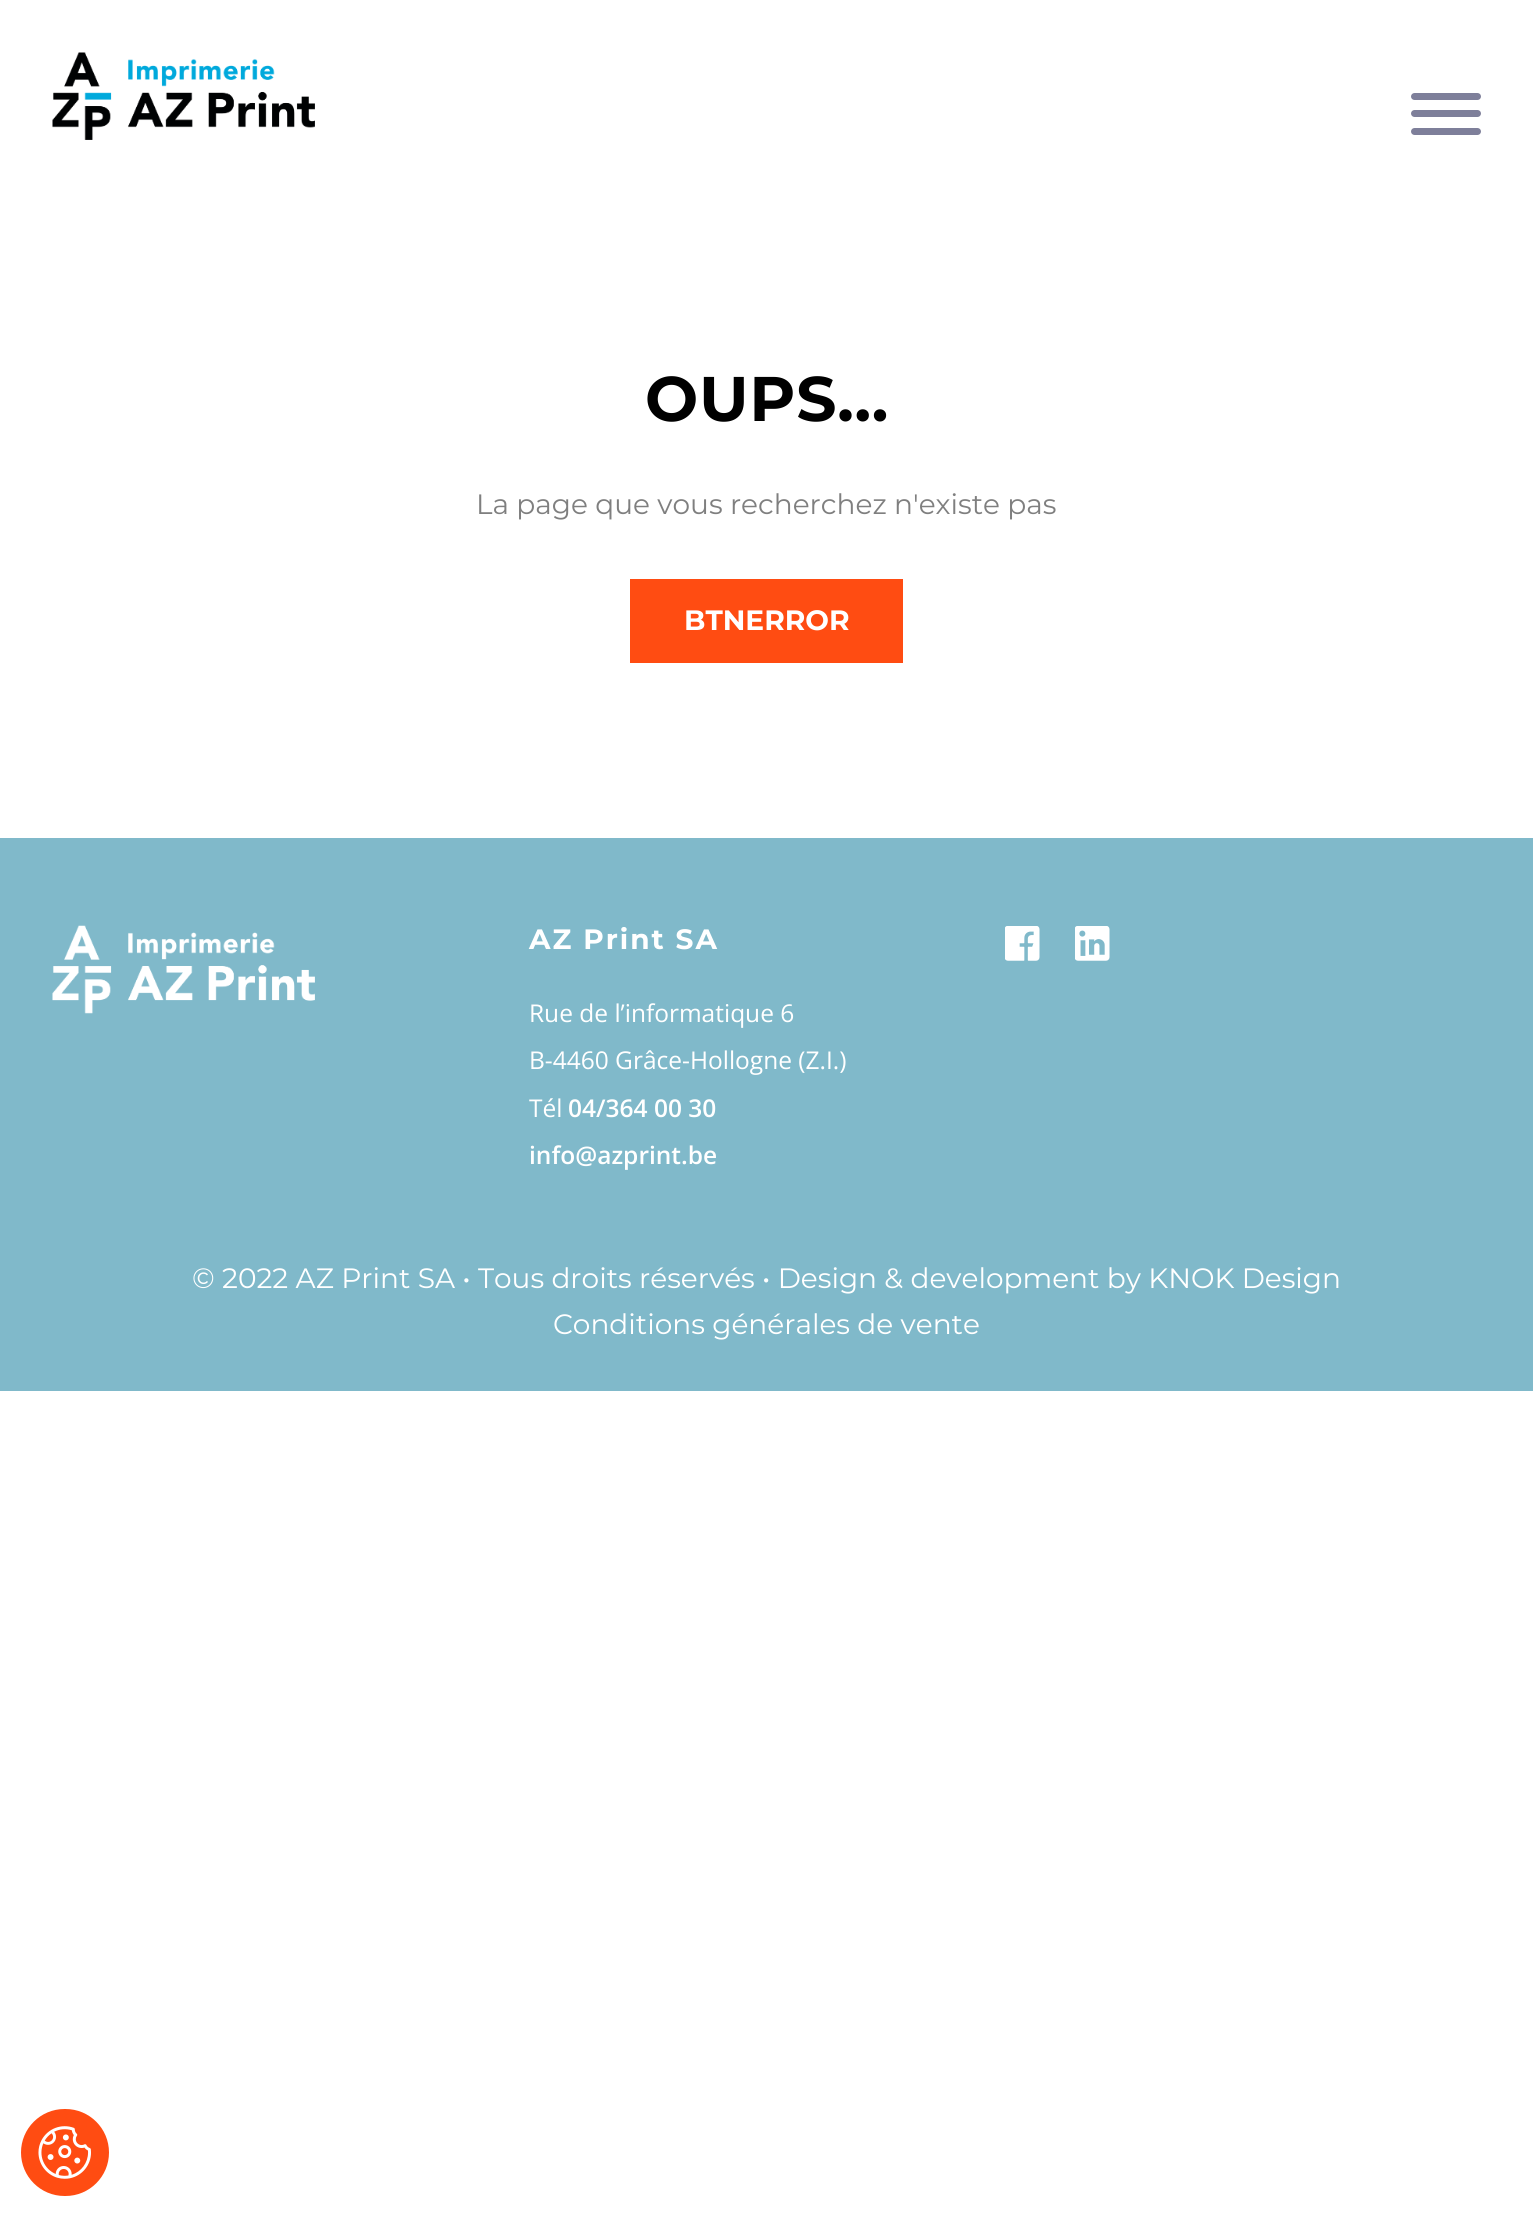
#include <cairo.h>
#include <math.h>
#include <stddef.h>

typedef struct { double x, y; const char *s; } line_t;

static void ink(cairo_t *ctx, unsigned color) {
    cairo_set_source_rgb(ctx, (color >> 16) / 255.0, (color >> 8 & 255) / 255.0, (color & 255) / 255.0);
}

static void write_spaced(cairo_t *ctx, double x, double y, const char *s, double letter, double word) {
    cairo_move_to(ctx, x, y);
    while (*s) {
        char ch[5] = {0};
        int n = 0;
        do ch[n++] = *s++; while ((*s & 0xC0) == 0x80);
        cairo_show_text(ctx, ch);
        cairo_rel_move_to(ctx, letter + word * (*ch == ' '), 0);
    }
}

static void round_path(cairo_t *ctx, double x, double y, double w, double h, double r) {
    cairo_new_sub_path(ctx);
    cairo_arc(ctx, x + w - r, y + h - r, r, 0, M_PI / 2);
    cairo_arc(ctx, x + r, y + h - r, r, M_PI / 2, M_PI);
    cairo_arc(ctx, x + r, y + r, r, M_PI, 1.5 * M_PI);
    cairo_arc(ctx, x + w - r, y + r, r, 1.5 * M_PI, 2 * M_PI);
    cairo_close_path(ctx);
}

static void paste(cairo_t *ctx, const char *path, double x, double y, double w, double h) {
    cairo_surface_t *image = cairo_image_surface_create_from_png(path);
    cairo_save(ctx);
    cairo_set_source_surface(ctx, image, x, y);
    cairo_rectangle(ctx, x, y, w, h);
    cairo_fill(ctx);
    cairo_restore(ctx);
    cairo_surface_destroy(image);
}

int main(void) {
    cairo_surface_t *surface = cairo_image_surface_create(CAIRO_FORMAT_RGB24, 1533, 2216);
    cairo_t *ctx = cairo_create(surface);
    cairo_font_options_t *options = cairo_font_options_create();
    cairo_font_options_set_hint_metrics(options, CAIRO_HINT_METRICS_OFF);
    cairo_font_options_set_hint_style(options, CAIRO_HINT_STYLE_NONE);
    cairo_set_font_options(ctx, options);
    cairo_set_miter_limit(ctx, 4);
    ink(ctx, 0xFFFFFF);
    cairo_paint(ctx);
    paste(ctx, "media/1.png", 52, 52, 263, 88);
    ink(ctx, 0x7E7F9A);
    round_path(ctx, 1411, 110, 70, 7, 3.5);
    cairo_fill(ctx);
    round_path(ctx, 1411, 93, 70, 7, 3.5);
    cairo_fill(ctx);
    round_path(ctx, 1411, 128, 70, 7, 3.5);
    cairo_fill(ctx);
    cairo_select_font_face(ctx, "Montserrat", CAIRO_FONT_SLANT_NORMAL, CAIRO_FONT_WEIGHT_BOLD);
    cairo_set_font_size(ctx, 63);
    ink(ctx, 0x000000);
    write_spaced(ctx, 645, 421, "OUPS...", 0.75, 0);
    cairo_select_font_face(ctx, "Montserrat", CAIRO_FONT_SLANT_NORMAL, CAIRO_FONT_WEIGHT_NORMAL);
    cairo_set_font_size(ctx, 28);
    ink(ctx, 0x7F7F7F);
    cairo_move_to(ctx, 476, 514);
    cairo_show_text(ctx, "La page que vous recherchez n'existe pas");
    ink(ctx, 0xFF4C12);
    cairo_rectangle(ctx, 630, 579, 273, 84);
    cairo_fill(ctx);
    cairo_select_font_face(ctx, "Montserrat", CAIRO_FONT_SLANT_NORMAL, CAIRO_FONT_WEIGHT_BOLD);
    ink(ctx, 0xFFFFFF);
    cairo_move_to(ctx, 684, 630);
    cairo_show_text(ctx, "BTNERROR");
    ink(ctx, 0x80B9CA);
    cairo_rectangle(ctx, 0, 838, 1533, 553);
    cairo_fill(ctx);
    paste(ctx, "media/2.png", 52, 925, 263, 89);
    ink(ctx, 0xFFFFFF);
    write_spaced(ctx, 529, 949, "AZ Print SA", 2, 0);
    cairo_select_font_face(ctx, "Open Sans", CAIRO_FONT_SLANT_NORMAL, CAIRO_FONT_WEIGHT_NORMAL);
    cairo_set_font_size(ctx, 24.5);
    {
        static const line_t items[] = {
            {529, 1022, "Rue de l’informatique 6"},
            {529, 1069, "B-4460 Grâce-Hollogne (Z.I.)"},
            {529, 1117, "Tél"},
        };
        for (size_t i = 0; i < sizeof items / sizeof *items; i++) {
            cairo_move_to(ctx, items[i].x, items[i].y);
            cairo_show_text(ctx, items[i].s);
        }
    }
    cairo_select_font_face(ctx, "Open Sans SemiBold", CAIRO_FONT_SLANT_NORMAL, CAIRO_FONT_WEIGHT_NORMAL);
    cairo_move_to(ctx, 568, 1117);
    cairo_show_text(ctx, "04/364 00 30");
    cairo_move_to(ctx, 529, 1164);
    cairo_show_text(ctx, "info@azprint.be");
    paste(ctx, "media/3.png", 1005, 926, 35, 35);
    paste(ctx, "media/4.png", 1075, 926, 35, 35);
    cairo_select_font_face(ctx, "Montserrat", CAIRO_FONT_SLANT_NORMAL, CAIRO_FONT_WEIGHT_NORMAL);
    cairo_set_font_size(ctx, 28);
    cairo_move_to(ctx, 192, 1288);
    cairo_show_text(ctx, "© 2022 AZ Print SA • Tous droits réservés • Design & development by KNOK Design");
    cairo_move_to(ctx, 553, 1334);
    cairo_show_text(ctx, "Conditions générales de vente");
    ink(ctx, 0xFF4C12);
    round_path(ctx, 21, 2109, 88, 87, 43.5);
    cairo_fill(ctx);
    paste(ctx, "media/5.png", 38, 2126, 53, 53);
    cairo_surface_write_to_png(surface, "image.png");
    cairo_font_options_destroy(options);
    cairo_destroy(ctx);
    cairo_surface_destroy(surface);
    return 0;
}
